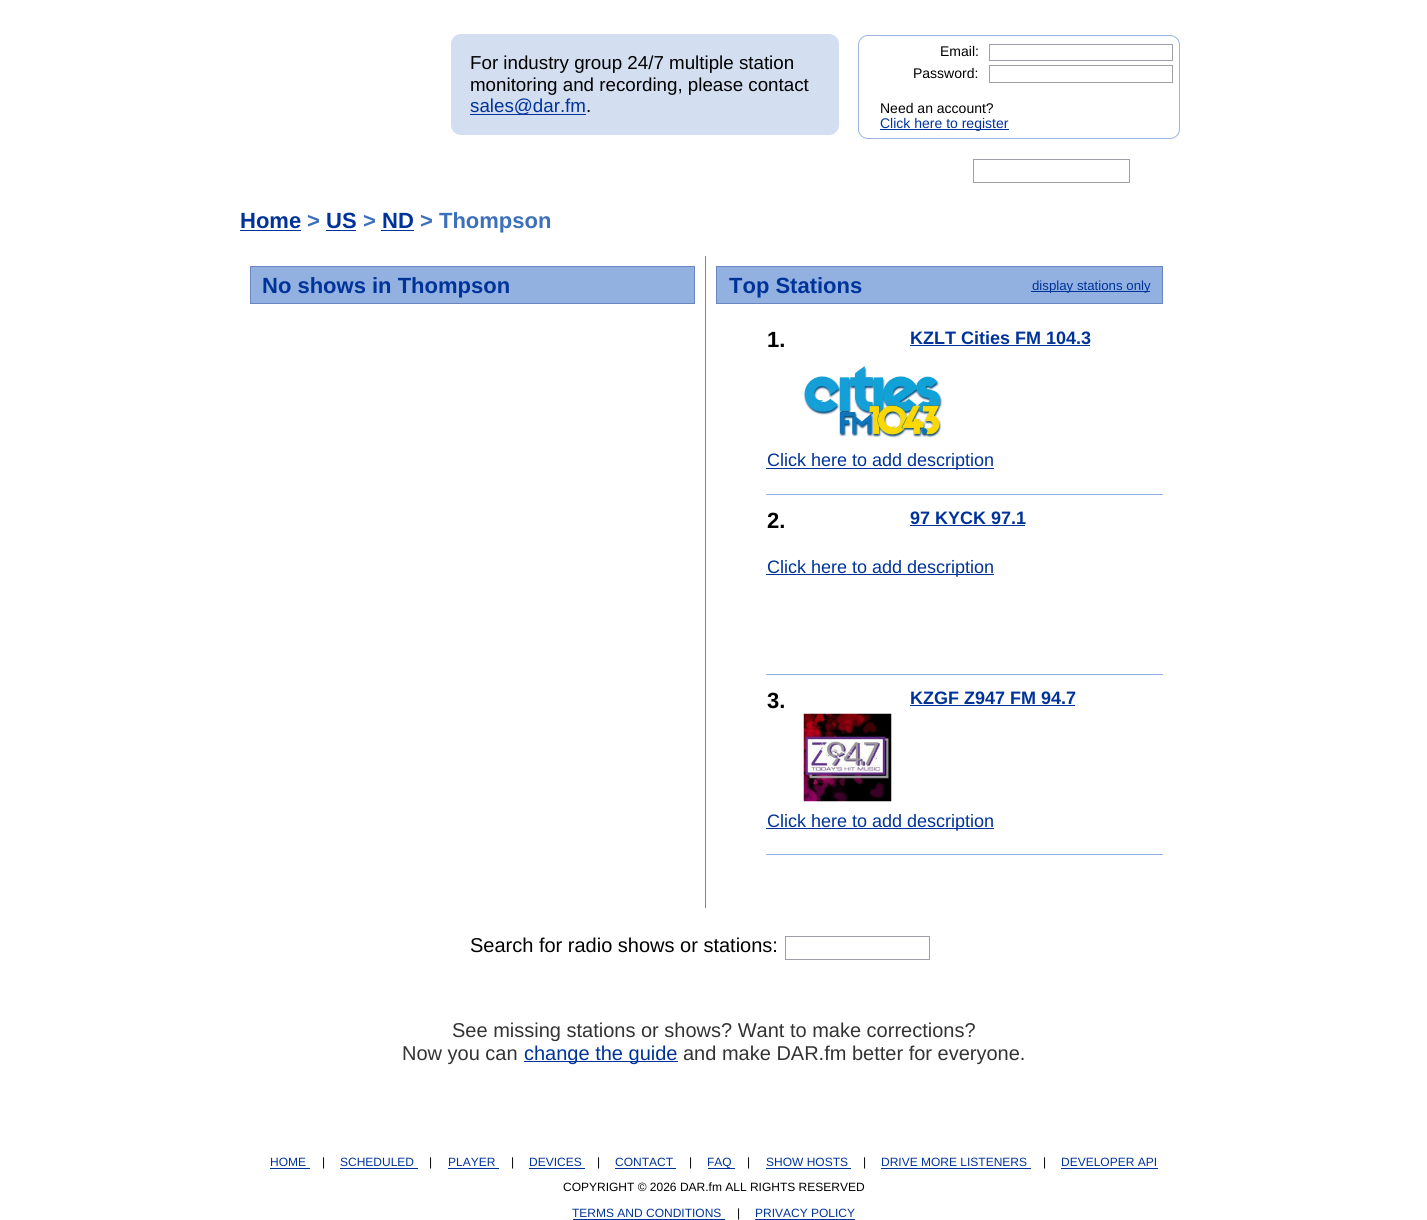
#include <cairo.h>
#include <math.h>
#include <stddef.h>


static void ink(cairo_t *ctx, unsigned color) {
    cairo_set_source_rgb(ctx, (color >> 16) / 255.0, (color >> 8 & 255) / 255.0, (color & 255) / 255.0);
}

static void round_path(cairo_t *ctx, double x, double y, double w, double h, double r) {
    cairo_new_sub_path(ctx);
    cairo_arc(ctx, x + w - r, y + h - r, r, 0, M_PI / 2);
    cairo_arc(ctx, x + r, y + h - r, r, M_PI / 2, M_PI);
    cairo_arc(ctx, x + r, y + r, r, M_PI, 1.5 * M_PI);
    cairo_arc(ctx, x + w - r, y + r, r, 1.5 * M_PI, 2 * M_PI);
    cairo_close_path(ctx);
}

static void paste(cairo_t *ctx, const char *path, double x, double y, double w, double h) {
    cairo_surface_t *image = cairo_image_surface_create_from_png(path);
    cairo_save(ctx);
    cairo_set_source_surface(ctx, image, x, y);
    cairo_rectangle(ctx, x, y, w, h);
    cairo_fill(ctx);
    cairo_restore(ctx);
    cairo_surface_destroy(image);
}

int main(void) {
    cairo_surface_t *surface = cairo_image_surface_create(CAIRO_FORMAT_RGB24, 1427, 1220);
    cairo_t *ctx = cairo_create(surface);
    cairo_font_options_t *options = cairo_font_options_create();
    cairo_font_options_set_hint_metrics(options, CAIRO_HINT_METRICS_OFF);
    cairo_font_options_set_hint_style(options, CAIRO_HINT_STYLE_NONE);
    cairo_set_font_options(ctx, options);
    cairo_set_miter_limit(ctx, 4);
    ink(ctx, 0xFFFFFF);
    cairo_paint(ctx);
    ink(ctx, 0xD3DEF0);
    round_path(ctx, 451, 34, 388, 101, 10);
    cairo_fill(ctx);
    cairo_select_font_face(ctx, "Liberation Sans", CAIRO_FONT_SLANT_NORMAL, CAIRO_FONT_WEIGHT_NORMAL);
    cairo_set_font_size(ctx, 18.75);
    ink(ctx, 0x000000);
    cairo_move_to(ctx, 470, 69);
    cairo_show_text(ctx, "For industry group 24/7 multiple station");
    cairo_move_to(ctx, 470, 91);
    cairo_show_text(ctx, "monitoring and recording, please contact");
    ink(ctx, 0x003399);
    cairo_rectangle(ctx, 470, 114, 116, 1);
    cairo_fill(ctx);
    cairo_move_to(ctx, 470, 112);
    cairo_show_text(ctx, "sales@dar.fm");
    ink(ctx, 0x000000);
    cairo_move_to(ctx, 586, 112);
    cairo_show_text(ctx, ".");
    round_path(ctx, 858.5, 35.5, 321, 103, 9.5);
    ink(ctx, 0x9AB6DE);
    cairo_set_line_width(ctx, 1);
    cairo_stroke(ctx);
    cairo_set_font_size(ctx, 14);
    ink(ctx, 0x000000);
    cairo_move_to(ctx, 940, 56);
    cairo_show_text(ctx, "Email:");
    cairo_rectangle(ctx, 989.5, 44.5, 183, 16);
    ink(ctx, 0x9DA0A7);
    cairo_stroke(ctx);
    ink(ctx, 0x000000);
    cairo_move_to(ctx, 913, 78);
    cairo_show_text(ctx, "Password:");
    cairo_rectangle(ctx, 989.5, 65.5, 183, 17);
    ink(ctx, 0x9DA0A7);
    cairo_stroke(ctx);
    ink(ctx, 0x000000);
    cairo_move_to(ctx, 880, 113);
    cairo_show_text(ctx, "Need an account?");
    ink(ctx, 0x003399);
    cairo_rectangle(ctx, 880, 129, 129, 1);
    cairo_fill(ctx);
    cairo_move_to(ctx, 880, 128);
    cairo_show_text(ctx, "Click here to register");
    cairo_rectangle(ctx, 973.5, 159.5, 156, 23);
    ink(ctx, 0x9DA0A7);
    cairo_stroke(ctx);
    cairo_select_font_face(ctx, "Liberation Sans", CAIRO_FONT_SLANT_NORMAL, CAIRO_FONT_WEIGHT_BOLD);
    cairo_set_font_size(ctx, 22);
    ink(ctx, 0x003399);
    cairo_move_to(ctx, 240, 228);
    cairo_show_text(ctx, "Home");
    cairo_rectangle(ctx, 240, 230, 61, 1);
    cairo_fill(ctx);
    ink(ctx, 0x3D70BC);
    cairo_move_to(ctx, 307, 228);
    cairo_show_text(ctx, ">");
    ink(ctx, 0x003399);
    cairo_move_to(ctx, 326, 228);
    cairo_show_text(ctx, "US");
    cairo_rectangle(ctx, 326, 230, 30, 1);
    cairo_fill(ctx);
    ink(ctx, 0x3D70BC);
    cairo_move_to(ctx, 363, 228);
    cairo_show_text(ctx, ">");
    ink(ctx, 0x003399);
    cairo_move_to(ctx, 382, 228);
    cairo_show_text(ctx, "ND");
    cairo_rectangle(ctx, 381, 230, 33, 1);
    cairo_fill(ctx);
    ink(ctx, 0x3D70BC);
    cairo_move_to(ctx, 420, 228);
    cairo_show_text(ctx, "> Thompson");
    ink(ctx, 0x92B1E0);
    cairo_rectangle(ctx, 250.5, 266.5, 444, 37);
    cairo_fill_preserve(ctx);
    ink(ctx, 0x6987BE);
    cairo_stroke(ctx);
    ink(ctx, 0x003399);
    cairo_move_to(ctx, 262, 293);
    cairo_show_text(ctx, "No shows in Thompson");
    ink(ctx, 0x6987BE);
    cairo_rectangle(ctx, 705, 256, 1, 652);
    cairo_fill(ctx);
    ink(ctx, 0x92B1E0);
    cairo_rectangle(ctx, 716.5, 266.5, 446, 37);
    cairo_fill_preserve(ctx);
    ink(ctx, 0x6987BE);
    cairo_stroke(ctx);
    ink(ctx, 0x003399);
    cairo_move_to(ctx, 729, 293);
    cairo_show_text(ctx, "Top Stations");
    cairo_rectangle(ctx, 1031, 291, 119, 1);
    cairo_fill(ctx);
    cairo_select_font_face(ctx, "Liberation Sans", CAIRO_FONT_SLANT_NORMAL, CAIRO_FONT_WEIGHT_NORMAL);
    cairo_set_font_size(ctx, 13.25);
    cairo_move_to(ctx, 1032, 290);
    cairo_show_text(ctx, "display stations only");
    ink(ctx, 0x92B1E0);
    cairo_rectangle(ctx, 766, 494, 397, 1);
    cairo_fill(ctx);
    cairo_select_font_face(ctx, "Liberation Sans", CAIRO_FONT_SLANT_NORMAL, CAIRO_FONT_WEIGHT_BOLD);
    cairo_set_font_size(ctx, 22);
    ink(ctx, 0x000000);
    cairo_move_to(ctx, 767, 347);
    cairo_show_text(ctx, "1.");
    cairo_set_font_size(ctx, 18);
    ink(ctx, 0x003399);
    cairo_move_to(ctx, 910, 344);
    cairo_show_text(ctx, "KZLT Cities FM 104.3");
    cairo_rectangle(ctx, 910, 345, 180, 1);
    cairo_fill(ctx);
    paste(ctx, "media/1.png", 804, 366, 138, 72);
    cairo_rectangle(ctx, 766, 468, 228, 1);
    cairo_fill(ctx);
    cairo_select_font_face(ctx, "Liberation Sans", CAIRO_FONT_SLANT_NORMAL, CAIRO_FONT_WEIGHT_NORMAL);
    cairo_move_to(ctx, 767, 466);
    cairo_show_text(ctx, "Click here to add description");
    ink(ctx, 0x92B1E0);
    cairo_rectangle(ctx, 766, 674, 397, 1);
    cairo_fill(ctx);
    cairo_select_font_face(ctx, "Liberation Sans", CAIRO_FONT_SLANT_NORMAL, CAIRO_FONT_WEIGHT_BOLD);
    cairo_set_font_size(ctx, 22);
    ink(ctx, 0x000000);
    cairo_move_to(ctx, 767, 528);
    cairo_show_text(ctx, "2.");
    cairo_set_font_size(ctx, 18);
    ink(ctx, 0x003399);
    cairo_move_to(ctx, 910, 524);
    cairo_show_text(ctx, "97 KYCK 97.1");
    cairo_rectangle(ctx, 910, 525, 115, 1);
    cairo_fill(ctx);
    cairo_rectangle(ctx, 766, 574, 228, 1);
    cairo_fill(ctx);
    cairo_select_font_face(ctx, "Liberation Sans", CAIRO_FONT_SLANT_NORMAL, CAIRO_FONT_WEIGHT_NORMAL);
    cairo_move_to(ctx, 767, 573);
    cairo_show_text(ctx, "Click here to add description");
    ink(ctx, 0x92B1E0);
    cairo_rectangle(ctx, 766, 854, 397, 1);
    cairo_fill(ctx);
    cairo_select_font_face(ctx, "Liberation Sans", CAIRO_FONT_SLANT_NORMAL, CAIRO_FONT_WEIGHT_BOLD);
    cairo_set_font_size(ctx, 22);
    ink(ctx, 0x000000);
    cairo_move_to(ctx, 767, 708);
    cairo_show_text(ctx, "3.");
    cairo_set_font_size(ctx, 18);
    ink(ctx, 0x003399);
    cairo_move_to(ctx, 910, 704);
    cairo_show_text(ctx, "KZGF Z947 FM 94.7");
    cairo_rectangle(ctx, 910, 705, 165, 1);
    cairo_fill(ctx);
    paste(ctx, "media/2.png", 803, 713, 89, 89);
    cairo_rectangle(ctx, 766, 828, 228, 1);
    cairo_fill(ctx);
    cairo_select_font_face(ctx, "Liberation Sans", CAIRO_FONT_SLANT_NORMAL, CAIRO_FONT_WEIGHT_NORMAL);
    cairo_move_to(ctx, 767, 827);
    cairo_show_text(ctx, "Click here to add description");
    cairo_set_font_size(ctx, 20);
    ink(ctx, 0x000000);
    cairo_move_to(ctx, 470, 952);
    cairo_show_text(ctx, "Search for radio shows or stations:");
    cairo_rectangle(ctx, 785.5, 936.5, 144, 23);
    ink(ctx, 0x9DA0A7);
    cairo_stroke(ctx);
    ink(ctx, 0x333333);
    cairo_move_to(ctx, 452, 1037);
    cairo_show_text(ctx, "See missing stations or shows? Want to make corrections?");
    cairo_move_to(ctx, 402, 1060);
    cairo_show_text(ctx, "Now you can");
    ink(ctx, 0x003399);
    cairo_rectangle(ctx, 524, 1061, 154, 1);
    cairo_fill(ctx);
    cairo_move_to(ctx, 524, 1060);
    cairo_show_text(ctx, "change the guide");
    ink(ctx, 0x333333);
    cairo_move_to(ctx, 683, 1060);
    cairo_show_text(ctx, "and make DAR.fm better for everyone.");
    cairo_set_font_size(ctx, 12);
    ink(ctx, 0x003399);
    cairo_move_to(ctx, 270, 1166);
    cairo_show_text(ctx, "HOME");
    cairo_rectangle(ctx, 270, 1168, 40, 1);
    cairo_fill(ctx);
    ink(ctx, 0x000000);
    cairo_move_to(ctx, 322, 1166);
    cairo_show_text(ctx, "|");
    ink(ctx, 0x003399);
    cairo_move_to(ctx, 340, 1166);
    cairo_show_text(ctx, "SCHEDULED");
    cairo_rectangle(ctx, 340, 1168, 78, 1);
    cairo_fill(ctx);
    ink(ctx, 0x000000);
    cairo_move_to(ctx, 429, 1166);
    cairo_show_text(ctx, "|");
    ink(ctx, 0x003399);
    cairo_move_to(ctx, 448, 1166);
    cairo_show_text(ctx, "PLAYER");
    cairo_rectangle(ctx, 448, 1168, 51, 1);
    cairo_fill(ctx);
    ink(ctx, 0x000000);
    cairo_move_to(ctx, 511, 1166);
    cairo_show_text(ctx, "|");
    ink(ctx, 0x003399);
    cairo_move_to(ctx, 529, 1166);
    cairo_show_text(ctx, "DEVICES");
    cairo_rectangle(ctx, 529, 1168, 56, 1);
    cairo_fill(ctx);
    ink(ctx, 0x000000);
    cairo_move_to(ctx, 597, 1166);
    cairo_show_text(ctx, "|");
    ink(ctx, 0x003399);
    cairo_move_to(ctx, 615, 1166);
    cairo_show_text(ctx, "CONTACT");
    cairo_rectangle(ctx, 615, 1168, 61, 1);
    cairo_fill(ctx);
    ink(ctx, 0x000000);
    cairo_move_to(ctx, 689, 1166);
    cairo_show_text(ctx, "|");
    ink(ctx, 0x003399);
    cairo_rectangle(ctx, 708, 1168, 27, 1);
    cairo_fill(ctx);
    cairo_move_to(ctx, 707, 1166);
    cairo_show_text(ctx, "FAQ");
    ink(ctx, 0x000000);
    cairo_move_to(ctx, 747, 1166);
    cairo_show_text(ctx, "|");
    ink(ctx, 0x003399);
    cairo_move_to(ctx, 766, 1166);
    cairo_show_text(ctx, "SHOW HOSTS");
    cairo_rectangle(ctx, 766, 1168, 85, 1);
    cairo_fill(ctx);
    ink(ctx, 0x000000);
    cairo_move_to(ctx, 863, 1166);
    cairo_show_text(ctx, "|");
    ink(ctx, 0x003399);
    cairo_move_to(ctx, 881, 1166);
    cairo_show_text(ctx, "DRIVE MORE LISTENERS");
    cairo_rectangle(ctx, 881, 1168, 150, 1);
    cairo_fill(ctx);
    ink(ctx, 0x000000);
    cairo_move_to(ctx, 1043, 1166);
    cairo_show_text(ctx, "|");
    ink(ctx, 0x003399);
    cairo_move_to(ctx, 1061, 1166);
    cairo_show_text(ctx, "DEVELOPER API");
    cairo_rectangle(ctx, 1061, 1168, 97, 1);
    cairo_fill(ctx);
    ink(ctx, 0x000000);
    cairo_move_to(ctx, 563, 1191);
    cairo_show_text(ctx, "COPYRIGHT © 2026 DAR.fm ALL RIGHTS RESERVED");
    ink(ctx, 0x003399);
    cairo_move_to(ctx, 572, 1217);
    cairo_show_text(ctx, "TERMS AND CONDITIONS");
    cairo_rectangle(ctx, 573, 1219, 152, 1);
    cairo_fill(ctx);
    ink(ctx, 0x000000);
    cairo_move_to(ctx, 737, 1217);
    cairo_show_text(ctx, "|");
    ink(ctx, 0x003399);
    cairo_move_to(ctx, 755, 1217);
    cairo_show_text(ctx, "PRIVACY POLICY");
    cairo_rectangle(ctx, 755, 1219, 100, 1);
    cairo_fill(ctx);
    cairo_surface_write_to_png(surface, "image.png");
    cairo_font_options_destroy(options);
    cairo_destroy(ctx);
    cairo_surface_destroy(surface);
    return 0;
}
